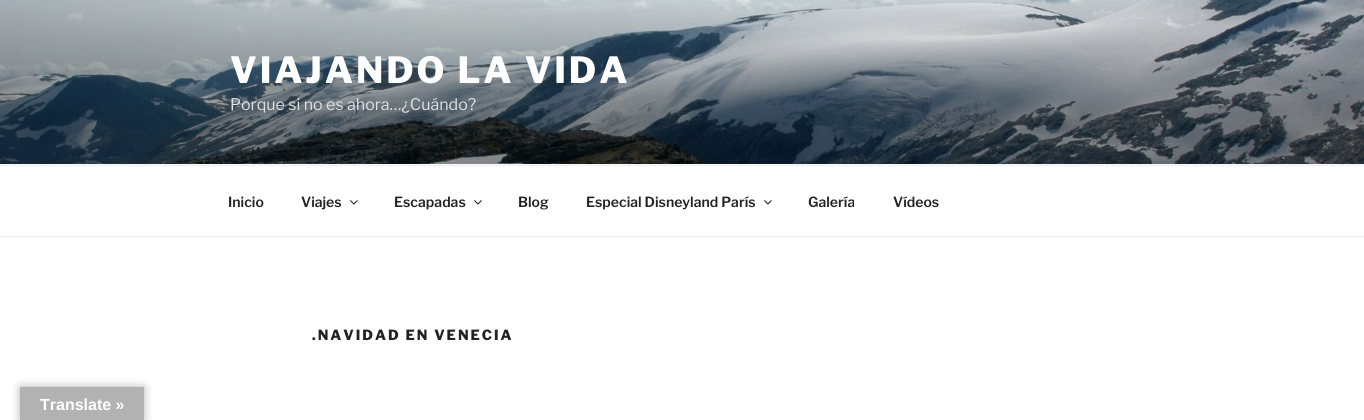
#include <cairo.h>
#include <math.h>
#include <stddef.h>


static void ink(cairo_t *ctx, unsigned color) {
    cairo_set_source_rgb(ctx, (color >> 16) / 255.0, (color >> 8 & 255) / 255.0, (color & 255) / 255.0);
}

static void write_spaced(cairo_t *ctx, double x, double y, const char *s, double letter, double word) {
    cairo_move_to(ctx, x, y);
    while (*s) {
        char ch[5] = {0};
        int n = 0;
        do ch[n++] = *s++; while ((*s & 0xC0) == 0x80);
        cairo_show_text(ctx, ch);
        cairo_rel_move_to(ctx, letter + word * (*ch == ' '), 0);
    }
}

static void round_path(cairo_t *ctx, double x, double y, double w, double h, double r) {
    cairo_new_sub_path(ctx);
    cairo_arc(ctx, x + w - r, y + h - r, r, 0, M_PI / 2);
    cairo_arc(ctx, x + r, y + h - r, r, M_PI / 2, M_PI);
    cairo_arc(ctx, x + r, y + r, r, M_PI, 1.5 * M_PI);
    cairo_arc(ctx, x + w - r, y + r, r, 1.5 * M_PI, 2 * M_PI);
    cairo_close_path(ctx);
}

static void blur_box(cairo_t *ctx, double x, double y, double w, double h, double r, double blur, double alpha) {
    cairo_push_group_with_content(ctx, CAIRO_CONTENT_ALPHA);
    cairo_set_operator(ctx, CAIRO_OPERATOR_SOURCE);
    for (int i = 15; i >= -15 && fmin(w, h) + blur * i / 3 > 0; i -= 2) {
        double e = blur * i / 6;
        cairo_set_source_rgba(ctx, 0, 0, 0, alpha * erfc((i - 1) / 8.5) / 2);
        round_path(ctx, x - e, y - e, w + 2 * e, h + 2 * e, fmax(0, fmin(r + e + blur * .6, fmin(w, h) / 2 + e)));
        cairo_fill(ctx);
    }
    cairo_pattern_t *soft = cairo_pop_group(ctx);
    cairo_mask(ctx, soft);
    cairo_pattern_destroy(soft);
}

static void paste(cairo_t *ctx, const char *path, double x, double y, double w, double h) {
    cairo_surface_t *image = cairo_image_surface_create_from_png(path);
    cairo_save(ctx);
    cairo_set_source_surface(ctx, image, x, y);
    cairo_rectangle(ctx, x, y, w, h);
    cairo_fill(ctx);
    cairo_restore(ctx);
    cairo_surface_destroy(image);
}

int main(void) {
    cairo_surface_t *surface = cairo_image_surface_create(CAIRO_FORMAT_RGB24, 1364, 420);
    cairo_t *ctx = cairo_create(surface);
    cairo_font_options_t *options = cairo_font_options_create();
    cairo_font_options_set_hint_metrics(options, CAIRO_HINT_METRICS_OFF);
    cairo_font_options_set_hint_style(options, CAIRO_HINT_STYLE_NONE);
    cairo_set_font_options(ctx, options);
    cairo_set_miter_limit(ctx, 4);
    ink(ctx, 0xFFFFFF);
    cairo_paint(ctx);
    ink(ctx, 0xFAFAFA);
    cairo_rectangle(ctx, 0, 164, 1364, 1);
    cairo_fill(ctx);
    paste(ctx, "media/1.png", 0, 0, 1364, 164);
    cairo_select_font_face(ctx, "Libre Franklin Thin", CAIRO_FONT_SLANT_NORMAL, CAIRO_FONT_WEIGHT_NORMAL);
    cairo_set_font_size(ctx, 36);
    ink(ctx, 0xFFFFFF);
    write_spaced(ctx, 230, 83, "VIAJANDO LA VIDA", 2.9, 0);
    cairo_select_font_face(ctx, "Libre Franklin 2 Thin", CAIRO_FONT_SLANT_NORMAL, CAIRO_FONT_WEIGHT_NORMAL);
    cairo_set_font_size(ctx, 16);
    ink(ctx, 0xDFE1E3);
    cairo_move_to(ctx, 230, 110);
    cairo_show_text(ctx, "Porque si no es ahora…¿Cuándo?");
    ink(ctx, 0xEEEEEE);
    cairo_rectangle(ctx, 0, 165, 1364, 1);
    cairo_fill(ctx);
    cairo_rectangle(ctx, 0, 236, 1364, 1);
    cairo_fill(ctx);
    cairo_select_font_face(ctx, "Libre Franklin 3 Thin", CAIRO_FONT_SLANT_NORMAL, CAIRO_FONT_WEIGHT_NORMAL);
    cairo_set_font_size(ctx, 14);
    ink(ctx, 0x222222);
    cairo_move_to(ctx, 228, 207);
    cairo_show_text(ctx, "Inicio");
    cairo_move_to(ctx, 301, 207);
    cairo_show_text(ctx, "Viajes");
    paste(ctx, "media/2.png", 350, 200, 8, 5);
    cairo_move_to(ctx, 394, 207);
    cairo_show_text(ctx, "Escapadas");
    paste(ctx, "media/2.png", 474, 200, 8, 5);
    cairo_move_to(ctx, 518, 207);
    cairo_show_text(ctx, "Blog");
    cairo_move_to(ctx, 586, 207);
    cairo_show_text(ctx, "Especial Disneyland París");
    paste(ctx, "media/2.png", 764, 200, 8, 5);
    cairo_move_to(ctx, 808, 207);
    cairo_show_text(ctx, "Galería");
    cairo_move_to(ctx, 893, 207);
    cairo_show_text(ctx, "Vídeos");
    cairo_select_font_face(ctx, "Libre Franklin Thin", CAIRO_FONT_SLANT_NORMAL, CAIRO_FONT_WEIGHT_NORMAL);
    write_spaced(ctx, 312, 340, ".NAVIDAD EN VENECIA", 2, 0);
    ink(ctx, 0x000000);
    blur_box(ctx, 20, 387, 124, 33, 0, 4.5, 0.3);
    ink(ctx, 0xB2B2B2);
    cairo_rectangle(ctx, 20, 387, 124, 33);
    cairo_fill(ctx);
    cairo_select_font_face(ctx, "Liberation Sans", CAIRO_FONT_SLANT_NORMAL, CAIRO_FONT_WEIGHT_BOLD);
    cairo_set_font_size(ctx, 16);
    ink(ctx, 0xFFFFFF);
    cairo_move_to(ctx, 40, 410);
    cairo_show_text(ctx, "Translate »");
    cairo_surface_write_to_png(surface, "image.png");
    cairo_font_options_destroy(options);
    cairo_destroy(ctx);
    cairo_surface_destroy(surface);
    return 0;
}
